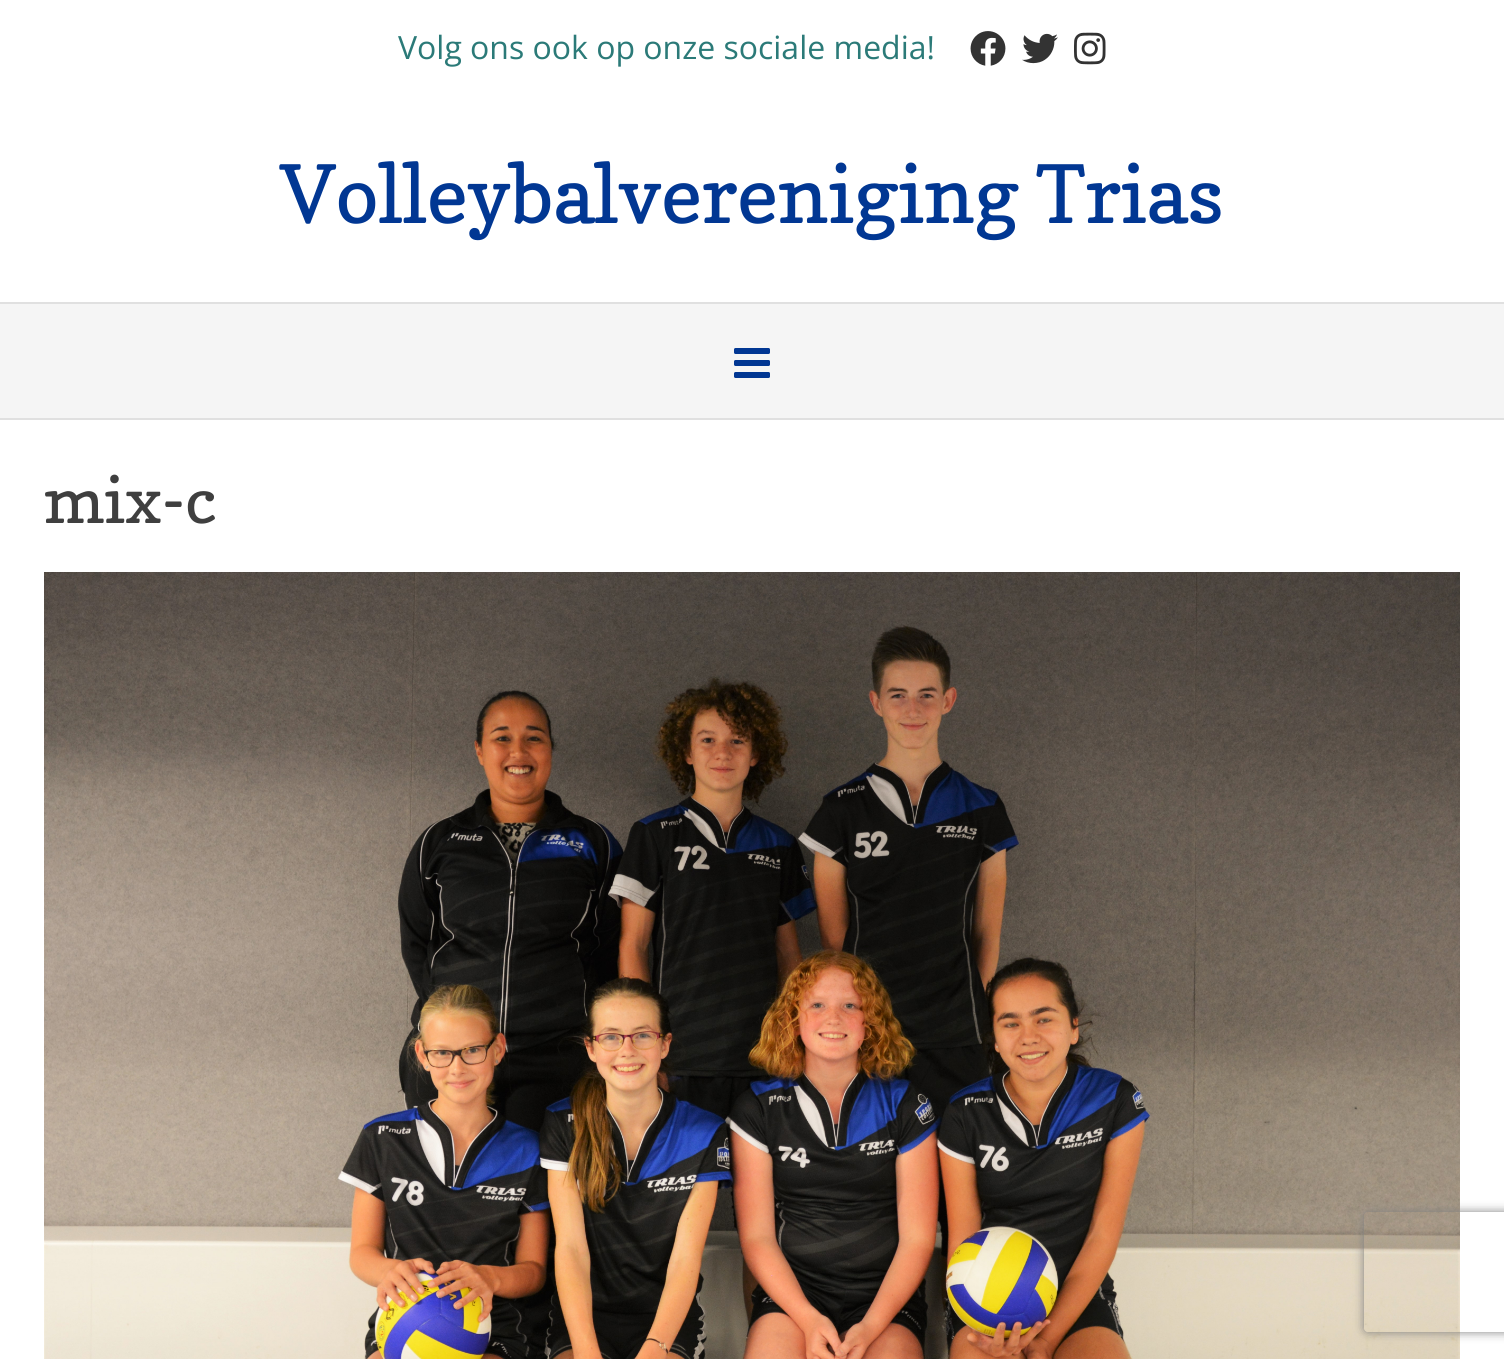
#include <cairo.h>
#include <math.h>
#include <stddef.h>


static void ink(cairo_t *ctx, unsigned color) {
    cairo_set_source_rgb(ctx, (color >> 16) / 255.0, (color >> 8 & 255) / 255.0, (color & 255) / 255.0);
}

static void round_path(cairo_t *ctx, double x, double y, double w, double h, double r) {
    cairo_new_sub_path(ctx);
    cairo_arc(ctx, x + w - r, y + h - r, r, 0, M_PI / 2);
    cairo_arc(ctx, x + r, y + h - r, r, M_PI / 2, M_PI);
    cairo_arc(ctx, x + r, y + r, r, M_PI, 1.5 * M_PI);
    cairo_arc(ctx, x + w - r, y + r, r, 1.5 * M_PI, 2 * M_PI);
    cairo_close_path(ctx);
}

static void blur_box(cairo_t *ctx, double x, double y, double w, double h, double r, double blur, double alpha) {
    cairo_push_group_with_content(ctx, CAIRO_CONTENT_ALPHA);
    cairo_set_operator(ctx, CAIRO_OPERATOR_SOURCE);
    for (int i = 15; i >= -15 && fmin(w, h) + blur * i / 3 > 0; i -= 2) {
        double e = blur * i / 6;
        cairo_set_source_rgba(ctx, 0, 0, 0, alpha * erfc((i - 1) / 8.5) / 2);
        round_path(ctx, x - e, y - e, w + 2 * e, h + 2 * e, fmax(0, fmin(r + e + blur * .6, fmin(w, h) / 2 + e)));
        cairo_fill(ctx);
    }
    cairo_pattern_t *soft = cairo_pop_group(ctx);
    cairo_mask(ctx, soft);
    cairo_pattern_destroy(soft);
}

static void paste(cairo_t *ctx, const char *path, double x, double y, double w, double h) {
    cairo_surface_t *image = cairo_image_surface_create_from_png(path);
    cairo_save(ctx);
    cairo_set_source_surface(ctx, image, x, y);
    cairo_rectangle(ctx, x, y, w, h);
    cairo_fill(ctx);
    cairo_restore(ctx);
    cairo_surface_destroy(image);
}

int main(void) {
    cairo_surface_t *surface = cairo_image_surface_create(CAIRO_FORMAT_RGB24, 1504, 1359);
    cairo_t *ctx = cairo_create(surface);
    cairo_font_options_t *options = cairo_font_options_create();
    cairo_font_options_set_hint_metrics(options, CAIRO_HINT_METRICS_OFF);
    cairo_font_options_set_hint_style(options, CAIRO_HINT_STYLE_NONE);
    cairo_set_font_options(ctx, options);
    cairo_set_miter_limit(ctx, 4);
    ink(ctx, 0xFFFFFF);
    cairo_paint(ctx);
    cairo_select_font_face(ctx, "Open Sans", CAIRO_FONT_SLANT_NORMAL, CAIRO_FONT_WEIGHT_NORMAL);
    cairo_set_font_size(ctx, 32);
    ink(ctx, 0x2B7A78);
    cairo_move_to(ctx, 398, 59);
    cairo_show_text(ctx, "Volg ons ook op onze sociale media!");
    paste(ctx, "media/1.png", 970, 31, 36, 35);
    paste(ctx, "media/2.png", 1022, 33, 36, 31);
    paste(ctx, "media/3.png", 1074, 32, 32, 33);
    ink(ctx, 0xE0E0E0);
    cairo_rectangle(ctx, 0, 418, 1504, 2);
    cairo_fill(ctx);
    cairo_select_font_face(ctx, "Copse", CAIRO_FONT_SLANT_NORMAL, CAIRO_FONT_WEIGHT_NORMAL);
    cairo_set_font_size(ctx, 80);
    ink(ctx, 0x013793);
    cairo_move_to(ctx, 280, 223);
    cairo_show_text(ctx, "Volleybalvereniging Trias");
    ink(ctx, 0xF5F5F5);
    cairo_rectangle(ctx, 0, 304, 1504, 114);
    cairo_fill(ctx);
    ink(ctx, 0xE0E0E0);
    cairo_rectangle(ctx, 0, 302, 1504, 2);
    cairo_fill(ctx);
    paste(ctx, "media/4.png", 734, 348, 36, 30);
    cairo_set_font_size(ctx, 64);
    ink(ctx, 0x3F3F3F);
    cairo_move_to(ctx, 44, 523);
    cairo_show_text(ctx, "mix-c");
    paste(ctx, "media/5.png", 44, 572, 1416, 787);
    cairo_save(ctx);
    cairo_set_fill_rule(ctx, CAIRO_FILL_RULE_EVEN_ODD);
    cairo_new_path(ctx);
    cairo_move_to(ctx, 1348, 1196);
    cairo_line_to(ctx, 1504, 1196);
    cairo_line_to(ctx, 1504, 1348);
    cairo_line_to(ctx, 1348, 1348);
    cairo_close_path(ctx);
    cairo_move_to(ctx, 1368, 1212);
    cairo_line_to(ctx, 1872, 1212);
    cairo_curve_to(ctx, 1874, 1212, 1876, 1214, 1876, 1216);
    cairo_line_to(ctx, 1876, 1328);
    cairo_curve_to(ctx, 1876, 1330, 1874, 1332, 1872, 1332);
    cairo_line_to(ctx, 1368, 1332);
    cairo_curve_to(ctx, 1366, 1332, 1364, 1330, 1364, 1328);
    cairo_line_to(ctx, 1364, 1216);
    cairo_curve_to(ctx, 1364, 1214, 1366, 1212, 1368, 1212);
    cairo_close_path(ctx);
    cairo_clip(ctx);
    ink(ctx, 0x808080);
    blur_box(ctx, 1364, 1212, 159, 120, 4, 5, 1);
    cairo_restore(ctx);
    cairo_surface_write_to_png(surface, "image.png");
    cairo_font_options_destroy(options);
    cairo_destroy(ctx);
    cairo_surface_destroy(surface);
    return 0;
}
